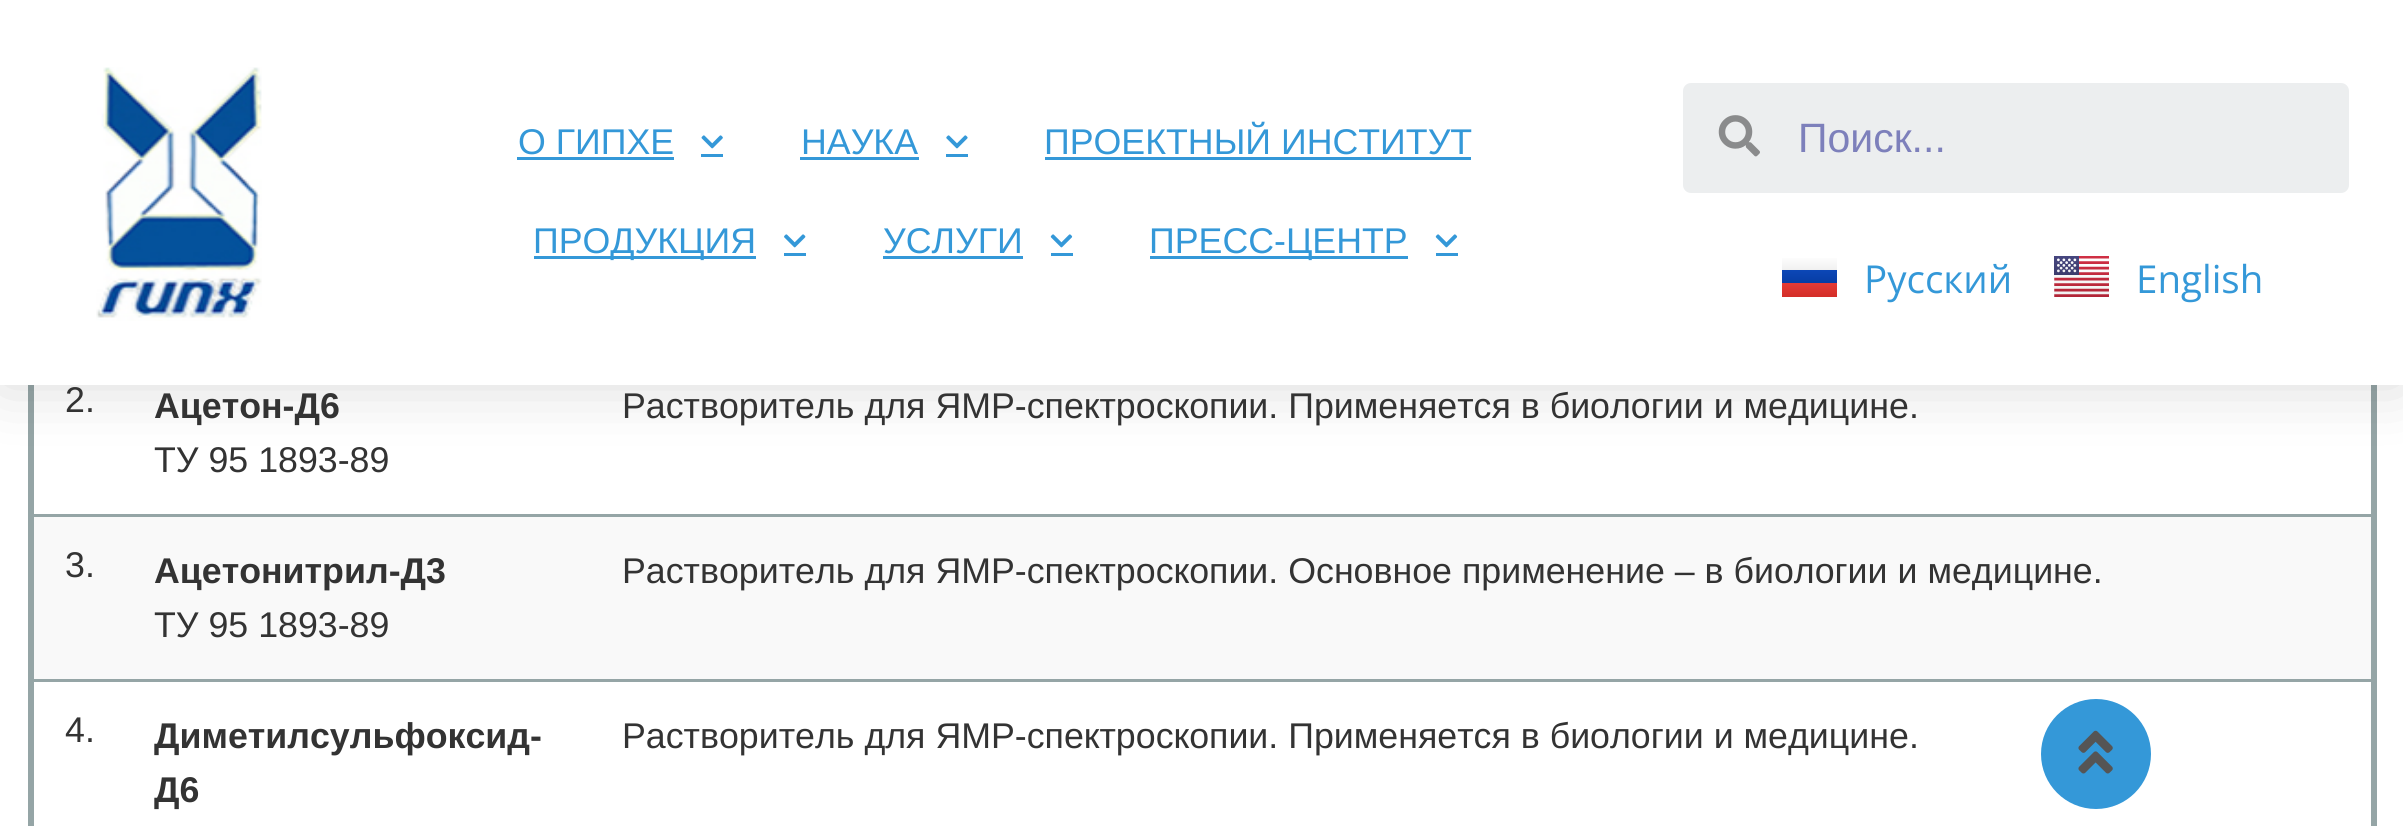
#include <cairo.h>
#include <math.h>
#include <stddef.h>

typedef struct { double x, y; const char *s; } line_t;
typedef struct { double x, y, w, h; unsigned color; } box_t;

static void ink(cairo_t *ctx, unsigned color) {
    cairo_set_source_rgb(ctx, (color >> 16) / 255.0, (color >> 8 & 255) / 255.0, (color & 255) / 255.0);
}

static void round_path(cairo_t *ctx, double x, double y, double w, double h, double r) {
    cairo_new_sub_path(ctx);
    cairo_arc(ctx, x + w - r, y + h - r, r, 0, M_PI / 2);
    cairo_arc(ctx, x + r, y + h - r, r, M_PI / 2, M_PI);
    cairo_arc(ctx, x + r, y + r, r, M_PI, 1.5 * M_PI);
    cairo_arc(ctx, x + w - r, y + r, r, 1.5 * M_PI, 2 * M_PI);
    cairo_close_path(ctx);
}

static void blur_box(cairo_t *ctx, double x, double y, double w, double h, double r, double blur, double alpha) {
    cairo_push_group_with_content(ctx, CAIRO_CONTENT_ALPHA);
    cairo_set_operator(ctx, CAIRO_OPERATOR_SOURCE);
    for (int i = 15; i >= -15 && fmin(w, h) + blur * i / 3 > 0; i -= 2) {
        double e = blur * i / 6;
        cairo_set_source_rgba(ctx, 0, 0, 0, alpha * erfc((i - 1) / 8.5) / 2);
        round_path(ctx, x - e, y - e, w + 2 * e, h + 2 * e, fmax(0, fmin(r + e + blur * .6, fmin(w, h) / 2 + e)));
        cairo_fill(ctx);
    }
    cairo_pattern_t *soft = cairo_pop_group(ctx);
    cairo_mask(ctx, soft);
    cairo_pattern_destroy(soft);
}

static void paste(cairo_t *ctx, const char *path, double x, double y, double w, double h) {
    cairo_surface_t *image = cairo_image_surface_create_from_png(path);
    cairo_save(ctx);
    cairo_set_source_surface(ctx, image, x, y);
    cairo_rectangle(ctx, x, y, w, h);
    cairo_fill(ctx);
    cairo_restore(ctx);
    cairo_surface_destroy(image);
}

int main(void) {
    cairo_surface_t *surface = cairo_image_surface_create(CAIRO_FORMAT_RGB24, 2403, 826);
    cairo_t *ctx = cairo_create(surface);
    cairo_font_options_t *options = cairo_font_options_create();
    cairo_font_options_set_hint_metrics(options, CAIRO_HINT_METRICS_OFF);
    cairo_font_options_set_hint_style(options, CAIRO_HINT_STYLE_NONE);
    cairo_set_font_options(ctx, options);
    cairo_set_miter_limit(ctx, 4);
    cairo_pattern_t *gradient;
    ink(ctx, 0xFFFFFF);
    cairo_paint(ctx);
    {
        static const box_t items[] = {
            {2371, 385, 6, 441, 0x95A5A6},
            {28, 514, 2348, 3, 0x95A5A6},
            {28, 385, 6, 132, 0x95A5A6},
        };
        for (size_t i = 0; i < sizeof items / sizeof *items; i++) {
            ink(ctx, items[i].color);
            cairo_rectangle(ctx, items[i].x, items[i].y, items[i].w, items[i].h);
            cairo_fill(ctx);
        }
    }
    ink(ctx, 0x000000);
    blur_box(ctx, 0, 0, 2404, 385, 0, 33, 0.15);
    ink(ctx, 0xFFFFFF);
    cairo_rectangle(ctx, 0, 0, 2403, 385);
    cairo_fill(ctx);
    paste(ctx, "media/1.png", 96, 67, 166, 254);
    cairo_select_font_face(ctx, "Liberation Sans", CAIRO_FONT_SLANT_NORMAL, CAIRO_FONT_WEIGHT_NORMAL);
    cairo_set_font_size(ctx, 35.75);
    ink(ctx, 0x3498D8);
    cairo_move_to(ctx, 518, 154);
    cairo_show_text(ctx, "О ГИПХЕ");
    cairo_rectangle(ctx, 517, 157, 157, 3);
    cairo_fill(ctx);
    paste(ctx, "media/2.png", 701, 135, 22, 14);
    cairo_rectangle(ctx, 701, 154, 22, 3);
    cairo_fill(ctx);
    cairo_move_to(ctx, 801, 154);
    cairo_show_text(ctx, "НАУКА");
    cairo_rectangle(ctx, 800, 157, 119, 3);
    cairo_fill(ctx);
    paste(ctx, "media/3.png", 946, 135, 22, 14);
    cairo_rectangle(ctx, 946, 154, 22, 3);
    cairo_fill(ctx);
    cairo_move_to(ctx, 1044, 154);
    cairo_show_text(ctx, "ПРОЕКТНЫЙ ИНСТИТУТ");
    cairo_rectangle(ctx, 1045, 157, 426, 3);
    cairo_fill(ctx);
    cairo_rectangle(ctx, 534, 256, 222, 3);
    cairo_fill(ctx);
    cairo_move_to(ctx, 533, 253);
    cairo_show_text(ctx, "ПРОДУКЦИЯ");
    paste(ctx, "media/4.png", 784, 234, 22, 14);
    cairo_rectangle(ctx, 784, 253, 22, 3);
    cairo_fill(ctx);
    cairo_move_to(ctx, 883, 253);
    cairo_show_text(ctx, "УСЛУГИ");
    cairo_rectangle(ctx, 883, 256, 140, 3);
    cairo_fill(ctx);
    paste(ctx, "media/5.png", 1050, 234, 23, 14);
    cairo_rectangle(ctx, 1051, 253, 22, 3);
    cairo_fill(ctx);
    cairo_rectangle(ctx, 1150, 256, 258, 3);
    cairo_fill(ctx);
    cairo_move_to(ctx, 1149, 253);
    cairo_show_text(ctx, "ПРЕСС-ЦЕНТР");
    paste(ctx, "media/5.png", 1435, 234, 23, 14);
    cairo_rectangle(ctx, 1436, 253, 22, 3);
    cairo_fill(ctx);
    ink(ctx, 0xECEEEF);
    round_path(ctx, 1683, 83, 666, 110, 8);
    cairo_fill(ctx);
    paste(ctx, "media/6.png", 1718, 115, 42, 42);
    cairo_set_font_size(ctx, 41);
    ink(ctx, 0x7D80BB);
    cairo_move_to(ctx, 1798, 152);
    cairo_show_text(ctx, "Поиск...");
    gradient = cairo_pattern_create_linear(1808, 256, 1808, 270);
    cairo_pattern_add_color_stop_rgba(gradient, 0, 1, 1, 1, 1);
    cairo_pattern_add_color_stop_rgba(gradient, 1, 0.941, 0.941, 0.941, 1);
    cairo_set_source(ctx, gradient);
    cairo_pattern_destroy(gradient);
    cairo_rectangle(ctx, 1782, 258, 55, 12);
    cairo_fill(ctx);
    gradient = cairo_pattern_create_linear(1808, 270, 1808, 283);
    cairo_pattern_add_color_stop_rgba(gradient, 0, 0.047, 0.278, 0.718, 1);
    cairo_pattern_add_color_stop_rgba(gradient, 1, 0.027, 0.239, 0.643, 1);
    cairo_set_source(ctx, gradient);
    cairo_pattern_destroy(gradient);
    cairo_rectangle(ctx, 1782, 270, 55, 13);
    cairo_fill(ctx);
    gradient = cairo_pattern_create_linear(1808, 283, 1808, 297);
    cairo_pattern_add_color_stop_rgba(gradient, 0, 0.898, 0.231, 0.208, 1);
    cairo_pattern_add_color_stop_rgba(gradient, 1, 0.827, 0.18, 0.157, 1);
    cairo_set_source(ctx, gradient);
    cairo_pattern_destroy(gradient);
    cairo_rectangle(ctx, 1782, 283, 55, 14);
    cairo_fill(ctx);
    cairo_select_font_face(ctx, "Open Sans", CAIRO_FONT_SLANT_NORMAL, CAIRO_FONT_WEIGHT_NORMAL);
    cairo_set_font_size(ctx, 38.5);
    ink(ctx, 0x3498D8);
    cairo_move_to(ctx, 1864, 293);
    cairo_show_text(ctx, "Русский");
    paste(ctx, "media/7.png", 2054, 256, 55, 41);
    cairo_move_to(ctx, 2136, 293);
    cairo_show_text(ctx, "English");
    cairo_select_font_face(ctx, "Liberation Sans", CAIRO_FONT_SLANT_NORMAL, CAIRO_FONT_WEIGHT_NORMAL);
    cairo_set_font_size(ctx, 35.75);
    ink(ctx, 0x333333);
    cairo_move_to(ctx, 65, 412);
    cairo_show_text(ctx, "2.");
    cairo_select_font_face(ctx, "Liberation Sans", CAIRO_FONT_SLANT_NORMAL, CAIRO_FONT_WEIGHT_BOLD);
    cairo_move_to(ctx, 154, 418);
    cairo_show_text(ctx, "Ацетон-Д6");
    cairo_select_font_face(ctx, "Liberation Sans", CAIRO_FONT_SLANT_NORMAL, CAIRO_FONT_WEIGHT_NORMAL);
    cairo_move_to(ctx, 154, 472);
    cairo_show_text(ctx, "ТУ 95 1893-89");
    cairo_move_to(ctx, 622, 418);
    cairo_show_text(ctx, "Растворитель для ЯМР-спектроскопии. Применяется в биологии и медицине.");
    {
        static const box_t items[] = {
            {34, 517, 2337, 162, 0xF9F9F9},
            {28, 679, 2348, 3, 0x95A5A6},
            {28, 517, 6, 309, 0x95A5A6},
        };
        for (size_t i = 0; i < sizeof items / sizeof *items; i++) {
            ink(ctx, items[i].color);
            cairo_rectangle(ctx, items[i].x, items[i].y, items[i].w, items[i].h);
            cairo_fill(ctx);
        }
    }
    ink(ctx, 0x333333);
    cairo_move_to(ctx, 65, 577);
    cairo_show_text(ctx, "3.");
    cairo_select_font_face(ctx, "Liberation Sans", CAIRO_FONT_SLANT_NORMAL, CAIRO_FONT_WEIGHT_BOLD);
    cairo_move_to(ctx, 154, 583);
    cairo_show_text(ctx, "Ацетонитрил-Д3");
    cairo_select_font_face(ctx, "Liberation Sans", CAIRO_FONT_SLANT_NORMAL, CAIRO_FONT_WEIGHT_NORMAL);
    {
        static const line_t items[] = {
            {154, 637, "ТУ 95 1893-89"},
            {622, 583, "Растворитель для ЯМР-спектроскопии. Основное применение – в биологии и медицине."},
            {65, 742, "4."},
        };
        for (size_t i = 0; i < sizeof items / sizeof *items; i++) {
            cairo_move_to(ctx, items[i].x, items[i].y);
            cairo_show_text(ctx, items[i].s);
        }
    }
    cairo_select_font_face(ctx, "Liberation Sans", CAIRO_FONT_SLANT_NORMAL, CAIRO_FONT_WEIGHT_BOLD);
    cairo_move_to(ctx, 154, 748);
    cairo_show_text(ctx, "Диметилсульфоксид-");
    cairo_move_to(ctx, 154, 802);
    cairo_show_text(ctx, "Д6");
    cairo_select_font_face(ctx, "Liberation Sans", CAIRO_FONT_SLANT_NORMAL, CAIRO_FONT_WEIGHT_NORMAL);
    cairo_move_to(ctx, 622, 748);
    cairo_show_text(ctx, "Растворитель для ЯМР-спектроскопии. Применяется в биологии и медицине.");
    ink(ctx, 0x3498D8);
    cairo_new_path(ctx);
    cairo_arc(ctx, 2096, 754, 55, 0, 2 * M_PI);
    cairo_fill(ctx);
    paste(ctx, "media/8.png", 2078, 730, 35, 44);
    cairo_surface_write_to_png(surface, "image.png");
    cairo_font_options_destroy(options);
    cairo_destroy(ctx);
    cairo_surface_destroy(surface);
    return 0;
}
